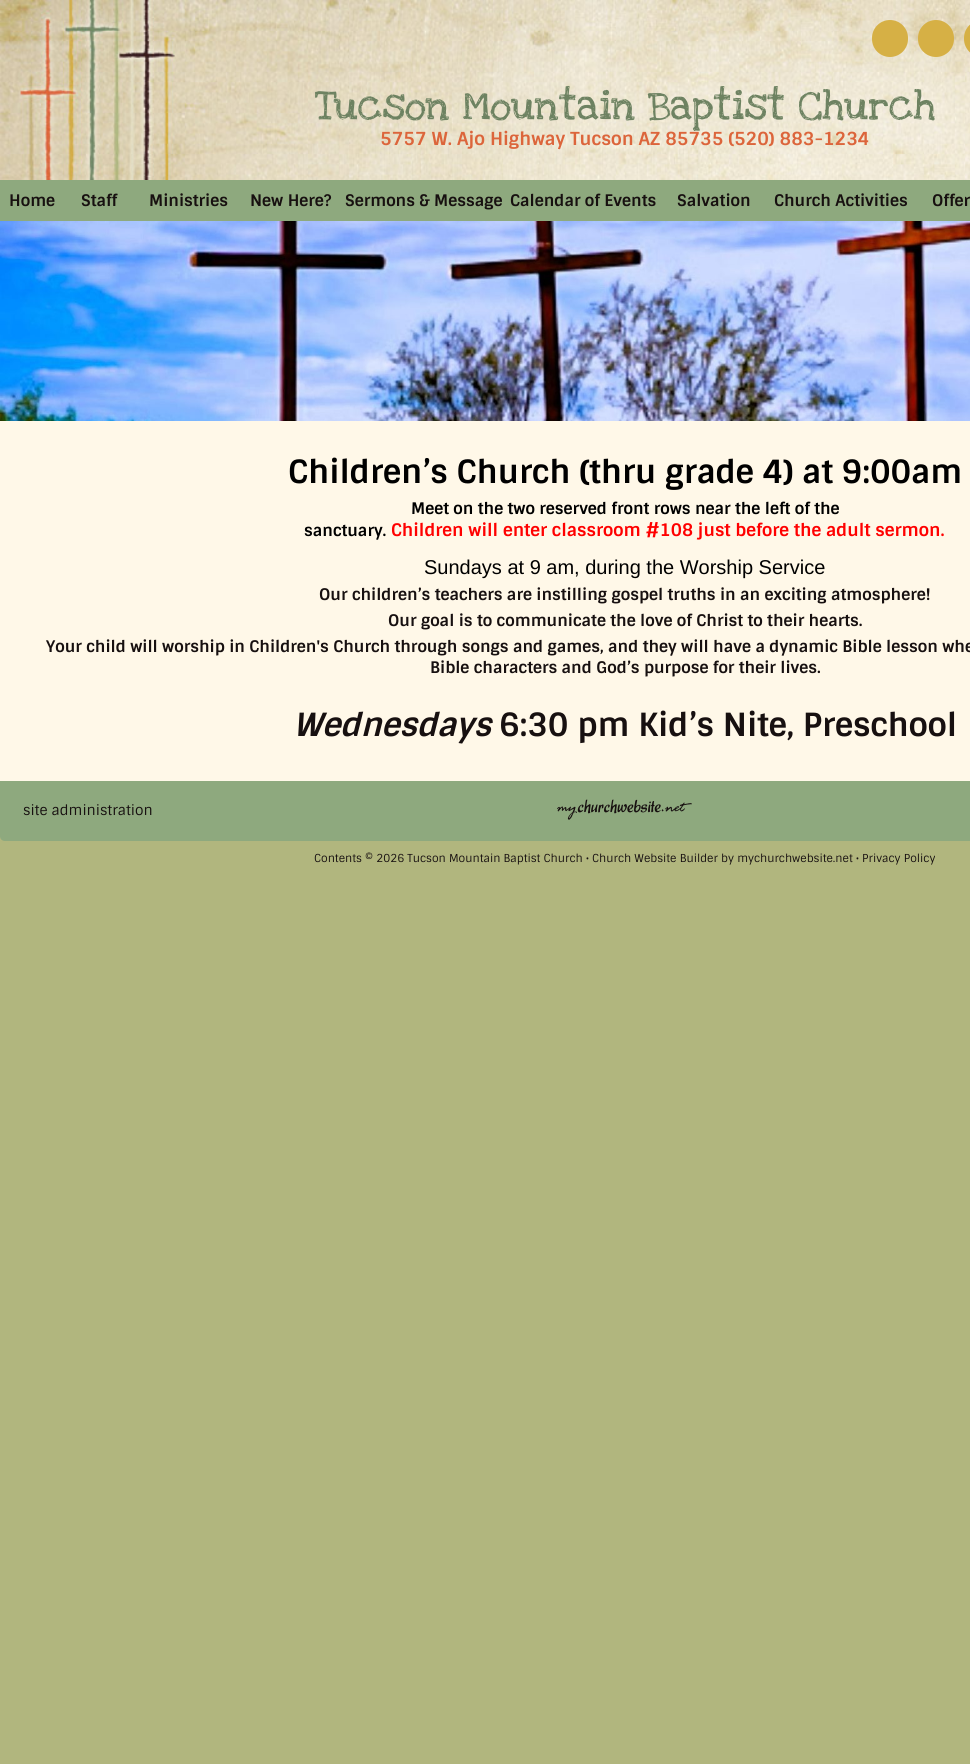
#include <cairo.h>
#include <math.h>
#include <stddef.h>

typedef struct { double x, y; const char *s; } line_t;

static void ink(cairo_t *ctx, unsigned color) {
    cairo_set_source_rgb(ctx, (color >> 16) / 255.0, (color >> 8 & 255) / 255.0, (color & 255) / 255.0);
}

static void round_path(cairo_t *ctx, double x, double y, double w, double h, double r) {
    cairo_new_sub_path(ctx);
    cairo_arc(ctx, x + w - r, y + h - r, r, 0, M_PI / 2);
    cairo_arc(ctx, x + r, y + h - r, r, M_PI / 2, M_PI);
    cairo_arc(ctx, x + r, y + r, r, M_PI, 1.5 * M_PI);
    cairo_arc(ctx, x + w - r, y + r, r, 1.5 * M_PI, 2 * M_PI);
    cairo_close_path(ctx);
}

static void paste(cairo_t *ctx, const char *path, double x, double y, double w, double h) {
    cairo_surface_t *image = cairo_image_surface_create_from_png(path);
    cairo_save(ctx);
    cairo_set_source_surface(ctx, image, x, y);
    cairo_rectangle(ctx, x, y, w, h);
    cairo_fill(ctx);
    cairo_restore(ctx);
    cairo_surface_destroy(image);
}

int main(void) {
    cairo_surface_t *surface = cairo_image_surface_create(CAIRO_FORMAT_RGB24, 970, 1764);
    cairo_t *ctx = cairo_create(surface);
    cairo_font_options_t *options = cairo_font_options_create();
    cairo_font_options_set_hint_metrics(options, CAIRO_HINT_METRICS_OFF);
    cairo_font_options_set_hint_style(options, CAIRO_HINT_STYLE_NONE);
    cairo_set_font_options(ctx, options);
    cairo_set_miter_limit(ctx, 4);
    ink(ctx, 0xB1B67E);
    cairo_paint(ctx);
    paste(ctx, "media/1.png", 0, 0, 970, 180);
    ink(ctx, 0xD6B045);
    round_path(ctx, 872, 20, 36, 37, 18);
    cairo_fill(ctx);
    round_path(ctx, 918, 20, 36, 37, 18);
    cairo_fill(ctx);
    round_path(ctx, 964, 20, 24, 37, 18);
    cairo_fill(ctx);
    cairo_select_font_face(ctx, "Love Ya Like A Sister", CAIRO_FONT_SLANT_NORMAL, CAIRO_FONT_WEIGHT_NORMAL);
    cairo_set_font_size(ctx, 42);
    ink(ctx, 0x6D8261);
    cairo_move_to(ctx, 315, 119);
    cairo_show_text(ctx, "Tucson Mountain Baptist Church");
    cairo_select_font_face(ctx, "Sintony", CAIRO_FONT_SLANT_NORMAL, CAIRO_FONT_WEIGHT_BOLD);
    cairo_set_font_size(ctx, 18);
    ink(ctx, 0xDC653B);
    cairo_move_to(ctx, 380, 145);
    cairo_show_text(ctx, "5757 W. Ajo Highway Tucson AZ 85735 (520) 883-1234");
    ink(ctx, 0x8EA97E);
    cairo_rectangle(ctx, 0, 180, 970, 41);
    cairo_fill(ctx);
    cairo_set_font_size(ctx, 16);
    ink(ctx, 0x171010);
    {
        static const line_t items[] = {
            {9, 206, "Home"},
            {81, 206, "Staff"},
            {149, 206, "Ministries"},
            {250, 206, "New Here?"},
            {345, 206, "Sermons & Message"},
            {510, 206, "Calendar of Events"},
            {677, 206, "Salvation"},
            {774, 206, "Church Activities"},
            {932, 206, "Offer"},
        };
        for (size_t i = 0; i < sizeof items / sizeof *items; i++) {
            cairo_move_to(ctx, items[i].x, items[i].y);
            cairo_show_text(ctx, items[i].s);
        }
    }
    ink(ctx, 0xFFF8E8);
    cairo_rectangle(ctx, 0, 421, 970, 360);
    cairo_fill(ctx);
    paste(ctx, "media/2.png", 0, 221, 970, 200);
    cairo_set_font_size(ctx, 32);
    ink(ctx, 0x000000);
    cairo_move_to(ctx, 288, 483);
    cairo_show_text(ctx, "Children’s Church (thru grade 4) at 9:00am");
    cairo_set_font_size(ctx, 16);
    cairo_move_to(ctx, 411, 514);
    cairo_show_text(ctx, "Meet on the two reserved front rows near the left of the");
    cairo_move_to(ctx, 304, 536);
    cairo_show_text(ctx, "sanctuary.");
    cairo_set_font_size(ctx, 17.3);
    ink(ctx, 0xFF0000);
    cairo_move_to(ctx, 391, 536);
    cairo_show_text(ctx, "Children will enter classroom #108 just before the adult sermon.");
    cairo_select_font_face(ctx, "Liberation Sans", CAIRO_FONT_SLANT_NORMAL, CAIRO_FONT_WEIGHT_NORMAL);
    cairo_set_font_size(ctx, 20);
    ink(ctx, 0x000000);
    cairo_move_to(ctx, 424, 574);
    cairo_show_text(ctx, "Sundays at 9 am, during the Worship Service");
    cairo_select_font_face(ctx, "Sintony", CAIRO_FONT_SLANT_NORMAL, CAIRO_FONT_WEIGHT_BOLD);
    cairo_set_font_size(ctx, 16);
    ink(ctx, 0x171010);
    {
        static const line_t items[] = {
            {319, 600, "Our children’s teachers are instilling gospel truths in an exciting atmosphere!"},
            {388, 626, "Our goal is to communicate the love of Christ to their hearts."},
            {46, 652, "Your child will worship in Children's Church through songs and games, and they will have a dynamic Bible lesson whe"},
            {430, 673, "Bible characters and God’s purpose for their lives."},
        };
        for (size_t i = 0; i < sizeof items / sizeof *items; i++) {
            cairo_move_to(ctx, items[i].x, items[i].y);
            cairo_show_text(ctx, items[i].s);
        }
    }
    cairo_select_font_face(ctx, "Sintony", CAIRO_FONT_SLANT_ITALIC, CAIRO_FONT_WEIGHT_BOLD);
    cairo_set_font_size(ctx, 32);
    cairo_move_to(ctx, 293, 736);
    cairo_show_text(ctx, "Wednesdays");
    cairo_select_font_face(ctx, "Sintony", CAIRO_FONT_SLANT_NORMAL, CAIRO_FONT_WEIGHT_BOLD);
    cairo_move_to(ctx, 499, 736);
    cairo_show_text(ctx, "6:30 pm Kid’s Nite, Preschool");
    ink(ctx, 0x8EA97E);
    cairo_new_path(ctx);
    cairo_move_to(ctx, 0, 781);
    cairo_line_to(ctx, 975, 781);
    cairo_line_to(ctx, 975, 836);
    cairo_curve_to(ctx, 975, 839, 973, 841, 970, 841);
    cairo_line_to(ctx, 5, 841);
    cairo_curve_to(ctx, 2, 841, 0, 839, 0, 836);
    cairo_close_path(ctx);
    cairo_fill(ctx);
    cairo_select_font_face(ctx, "Sintony", CAIRO_FONT_SLANT_NORMAL, CAIRO_FONT_WEIGHT_NORMAL);
    cairo_set_font_size(ctx, 14);
    ink(ctx, 0x171010);
    cairo_move_to(ctx, 23, 815);
    cairo_show_text(ctx, "site administration");
    paste(ctx, "media/3.png", 557, 799, 135, 21);
    cairo_set_font_size(ctx, 11);
    cairo_move_to(ctx, 314, 862);
    cairo_show_text(ctx, "Contents © 2026 Tucson Mountain Baptist Church • Church Website Builder by mychurchwebsite.net • Privacy Policy");
    cairo_surface_write_to_png(surface, "image.png");
    cairo_font_options_destroy(options);
    cairo_destroy(ctx);
    cairo_surface_destroy(surface);
    return 0;
}
